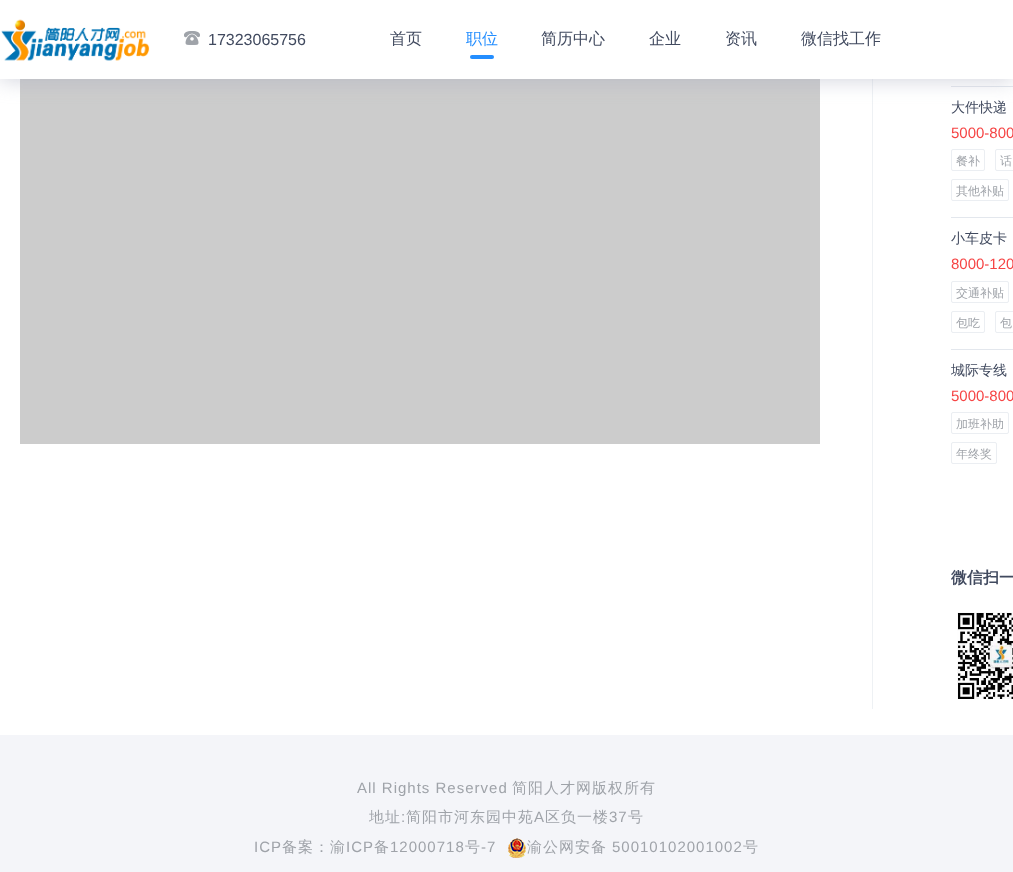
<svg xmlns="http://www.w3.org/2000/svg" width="1013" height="872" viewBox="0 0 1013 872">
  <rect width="100%" height="100%" fill="#fff"/>
  <path d="M20 79h800v365H20z" fill="#ccc"/>
  <path d="M872 79h1v630H872z" fill="#eef1f4"/>
  <path d="M951 86h62v1H951z" fill="#e3e7ed"/>
  <path d="M0 2h1013v79H0z" fill="#aaadbf80" filter="blur(10px)"/>
  <path d="M0 0h1013v79H0z" fill="#fff"/>
  <image x="1" y="19" width="149" height="42" href="img/1.png"/>
  <image x="184" y="31" width="16" height="14" href="img/2.png"/>
  <rect x="470" y="55" width="24" height="4" rx="2" fill="#248eff"/>
  <rect x="951.5" y="149.5" width="33" height="21" rx="1.5" fill="none" stroke="#ebeef2"/>
  <rect x="995.5" y="149.5" width="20" height="21" rx="1.5" fill="none" stroke="#ebeef2"/>
  <rect x="951.5" y="179.5" width="57" height="21" rx="1.5" fill="none" stroke="#ebeef2"/>
  <path d="M951 217h62v1H951z" fill="#e3e7ed"/>
  <rect x="951.5" y="281.5" width="57" height="21" rx="1.5" fill="none" stroke="#ebeef2"/>
  <rect x="951.5" y="311.5" width="33" height="21" rx="1.5" fill="none" stroke="#ebeef2"/>
  <rect x="995.5" y="311.5" width="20" height="21" rx="1.5" fill="none" stroke="#ebeef2"/>
  <path d="M951 349h62v1H951z" fill="#e3e7ed"/>
  <rect x="951.5" y="412.5" width="57" height="21" rx="1.5" fill="none" stroke="#ebeef2"/>
  <rect x="951.5" y="442.5" width="45" height="21" rx="1.5" fill="none" stroke="#ebeef2"/>
  <image x="957" y="612" width="56" height="87" href="img/3.png"/>
  <path d="M0 735h1013v137H0z" fill="#f4f5f9"/>
  <image x="508" y="838" width="18" height="20" href="img/4.png"/>
  <text x="208" y="45" font-family="Liberation Sans" font-size="16" fill="#414a5f">17323065756</text>
  <text x="390" y="44" font-family="WenQuanYi Zen Hei" font-size="16" font-weight="500" fill="#414a5f">首页</text>
  <text x="466" y="44" font-family="WenQuanYi Zen Hei" font-size="16" font-weight="500" fill="#248eff">职位</text>
  <g font-family="WenQuanYi Zen Hei" font-size="16" font-weight="500" fill="#414a5f">
    <text x="541" y="44">简历中心</text>
    <text x="649" y="44">企业</text>
    <text x="725" y="44">资讯</text>
    <text x="801" y="44">微信找工作</text>
  </g>
  <text x="951" y="112" font-family="WenQuanYi Zen Hei" font-size="14" font-weight="500" fill="#414a5f">大件快递</text>
  <text x="951" y="138" font-family="Liberation Sans" font-size="15" fill="#f64444">5000-800</text>
  <g font-family="WenQuanYi Zen Hei" font-size="12" font-weight="500" fill="#9fa3a9">
    <text x="956" y="165">餐补</text>
    <text x="1000" y="165">话</text>
    <text x="956" y="195">其他补贴</text>
  </g>
  <text x="951" y="243" font-family="WenQuanYi Zen Hei" font-size="14" font-weight="500" fill="#414a5f">小车皮卡</text>
  <text x="951" y="269" font-family="Liberation Sans" font-size="15" fill="#f64444">8000-120</text>
  <g font-family="WenQuanYi Zen Hei" font-size="12" font-weight="500" fill="#9fa3a9">
    <text x="956" y="297">交通补贴</text>
    <text x="956" y="327">包吃</text>
    <text x="1000" y="327">包</text>
  </g>
  <text x="951" y="375" font-family="WenQuanYi Zen Hei" font-size="14" font-weight="500" fill="#414a5f">城际专线</text>
  <text x="951" y="401" font-family="Liberation Sans" font-size="15" fill="#f64444">5000-800</text>
  <g font-family="WenQuanYi Zen Hei" font-size="12" font-weight="500" fill="#9fa3a9">
    <text x="956" y="428">加班补助</text>
    <text x="956" y="458">年终奖</text>
  </g>
  <text x="951" y="583" font-family="WenQuanYi Zen Hei" font-size="16" font-weight="bold" fill="#414a5f">微信扫一</text>
  <text x="357" y="793" font-family="Liberation Sans" font-size="15" letter-spacing="1" fill="#9fa3a9">All Rights Reserved</text>
  <g font-family="WenQuanYi Zen Hei" font-size="15" font-weight="500" letter-spacing="1" fill="#9fa3a9">
    <text x="512" y="793">简阳人才网版权所有</text>
    <text x="369" y="822">地址</text>
  </g>
  <text x="401" y="822" font-family="Liberation Sans" font-size="15" letter-spacing="1" fill="#9fa3a9">:</text>
  <text x="406" y="822" font-family="WenQuanYi Zen Hei" font-size="15" font-weight="500" letter-spacing="1" fill="#9fa3a9">简阳市河东园中苑</text>
  <text x="534" y="822" font-family="Liberation Sans" font-size="15" letter-spacing="1" fill="#9fa3a9">A</text>
  <text x="545" y="822" font-family="WenQuanYi Zen Hei" font-size="15" font-weight="500" letter-spacing="1" fill="#9fa3a9">区负一楼</text>
  <text x="609" y="822" font-family="Liberation Sans" font-size="15" letter-spacing="1" fill="#9fa3a9">37</text>
  <text x="628" y="822" font-family="WenQuanYi Zen Hei" font-size="15" font-weight="500" letter-spacing="1" fill="#9fa3a9">号</text>
  <text x="254" y="852" font-family="Liberation Sans" font-size="15" letter-spacing="1" fill="#9fa3a9">ICP</text>
  <text x="282" y="852" font-family="WenQuanYi Zen Hei" font-size="15" font-weight="500" letter-spacing="1" fill="#9fa3a9">备案：渝</text>
  <text x="346" y="852" font-family="Liberation Sans" font-size="15" letter-spacing="1" fill="#9fa3a9">ICP</text>
  <text x="374" y="852" font-family="WenQuanYi Zen Hei" font-size="15" font-weight="500" letter-spacing="1" fill="#9fa3a9">备</text>
  <text x="390" y="852" font-family="Liberation Sans" font-size="15" letter-spacing="1" fill="#9fa3a9">12000718</text>
  <text x="465" y="852" font-family="WenQuanYi Zen Hei" font-size="15" font-weight="500" letter-spacing="1" fill="#9fa3a9">号</text>
  <text x="481" y="852" font-family="Liberation Sans" font-size="15" letter-spacing="1" fill="#9fa3a9">-7</text>
  <text x="527" y="852" font-family="WenQuanYi Zen Hei" font-size="15" font-weight="500" letter-spacing="1" fill="#9fa3a9">渝公网安备</text>
  <text x="612" y="852" font-family="Liberation Sans" font-size="15" letter-spacing="1" fill="#9fa3a9">50010102001002</text>
  <text x="743" y="852" font-family="WenQuanYi Zen Hei" font-size="15" font-weight="500" letter-spacing="1" fill="#9fa3a9">号</text>
</svg>
